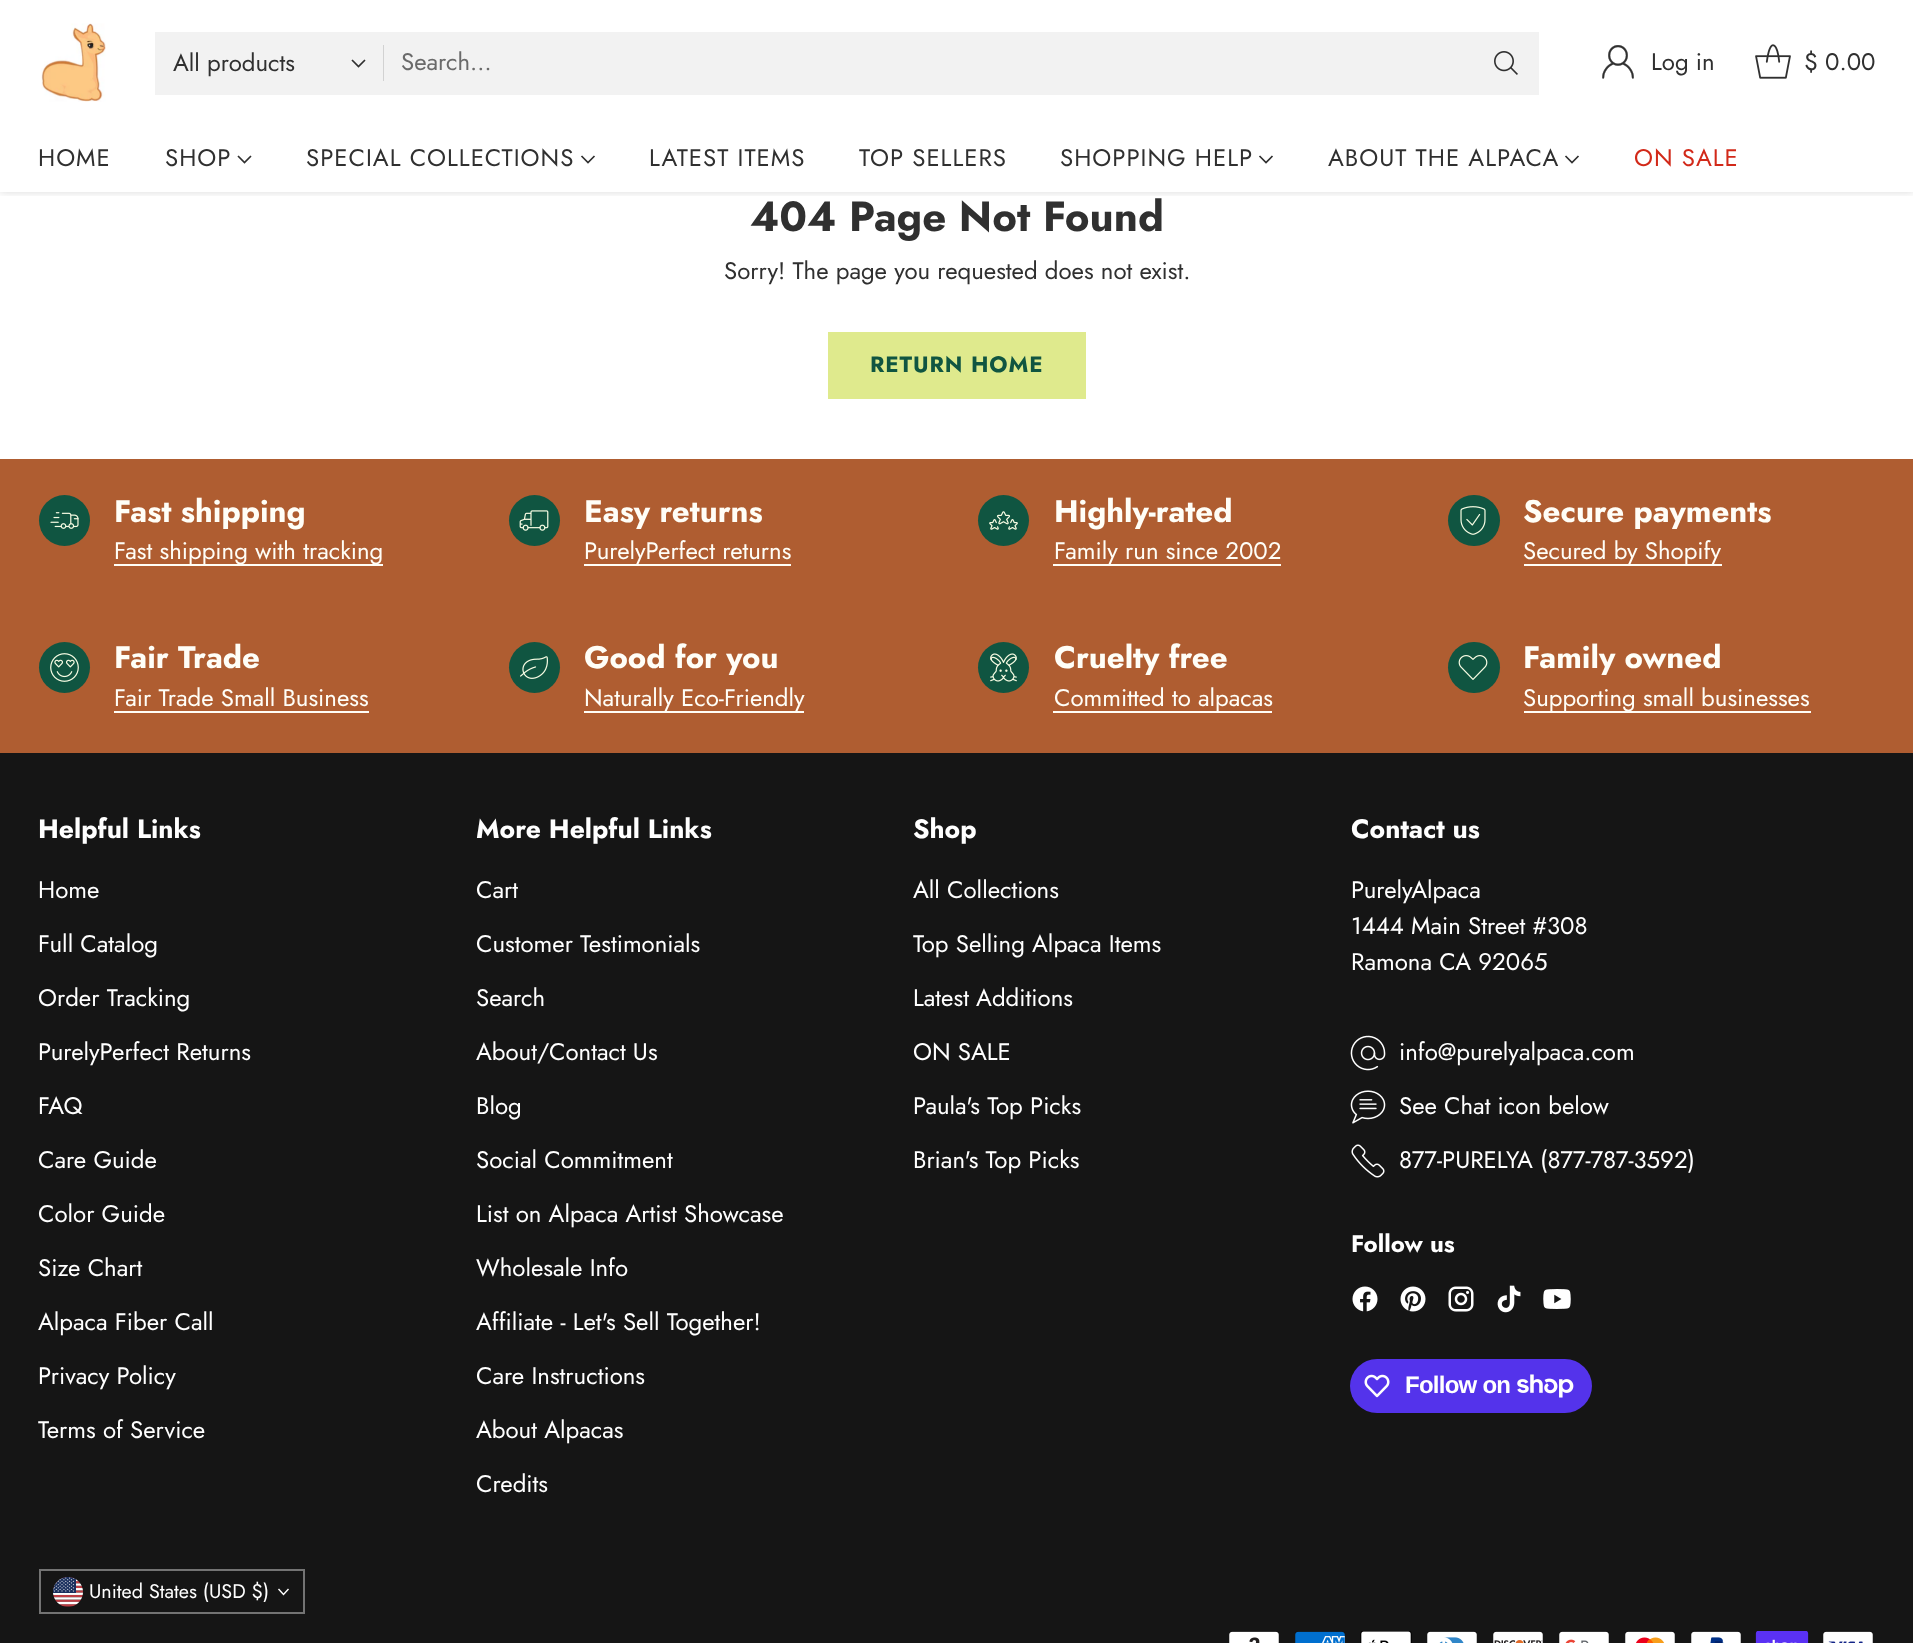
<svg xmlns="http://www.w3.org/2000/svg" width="1913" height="1643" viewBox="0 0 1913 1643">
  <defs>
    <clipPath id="clip1"><path d="M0 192h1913v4H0z"/></clipPath>
  </defs>
  <rect width="100%" height="100%" fill="#fff"/>
  <g clip-path="url(#clip1)">
    <path d="M0 126h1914v66H0z" fill="#00000026" filter="blur(4px)"/>
  </g>
  <path d="M0 120h1913v6H0z" fill="#fff"/>
  <image x="41" y="23" width="65" height="79" href="img/1.png"/>
  <path d="M156 33h1382v61H156z" fill="none" stroke="#f2f2f2" stroke-width="2"/>
  <path d="M157 34h1380v59H157z" fill="#f2f2f2"/>
  <path d="M352 60L358.5 66.5L365 60" fill="none" stroke="#303030" stroke-width="1.7"/>
  <path d="M383 45h1v36H383z" fill="#d2d2d2"/>
  <image x="1494" y="51" width="24" height="24" href="img/2.png"/>
  <image x="1602" y="45" width="32" height="34" href="img/3.png"/>
  <image x="1755" y="44" width="36" height="35" href="img/4.png"/>
  <path d="M238 156L244.5 162.5L251 156" fill="none" stroke="#303030" stroke-width="1.7"/>
  <path d="M581.5 156L588 162.5L594.5 156" fill="none" stroke="#303030" stroke-width="1.7"/>
  <path d="M1259.5 156L1266 162.5L1272.5 156" fill="none" stroke="#303030" stroke-width="1.7"/>
  <path d="M1565.5 156L1572 162.5L1578.5 156" fill="none" stroke="#303030" stroke-width="1.7"/>
  <path d="M828 332h258v67H828z" fill="#dfea8d"/>
  <path d="M0 459h1913v294H0z" fill="#af5d31"/>
  <circle cx="64.5" cy="520.5" r="25.5" fill="#105541"/>
  <image x="50" y="512" width="29" height="17" href="img/5.png"/>
  <path d="M114 564h269v2H114z" fill="#fffef7"/>
  <circle cx="534.5" cy="520.5" r="25.5" fill="#105541"/>
  <image x="519" y="510" width="30" height="21" href="img/6.png"/>
  <path d="M584 564h207v2H584z" fill="#fffef7"/>
  <circle cx="1003.5" cy="520.5" r="25.5" fill="#105541"/>
  <image x="989" y="511" width="29" height="19" href="img/7.png"/>
  <path d="M1053 564h228v2H1053z" fill="#fffef7"/>
  <rect x="1448" y="495" width="52" height="51" rx="25.5" fill="#105541"/>
  <image x="1460" y="506" width="26" height="29" href="img/8.png"/>
  <path d="M1524 564h198v2H1524z" fill="#fffef7"/>
  <circle cx="64.5" cy="667.5" r="25.5" fill="#105541"/>
  <image x="50" y="653" width="29" height="29" href="img/9.png"/>
  <path d="M114 711h255v2H114z" fill="#fffef7"/>
  <circle cx="534.5" cy="667.5" r="25.5" fill="#105541"/>
  <image x="520" y="656" width="28" height="23" href="img/10.png"/>
  <path d="M584 711h220v2H584z" fill="#fffef7"/>
  <circle cx="1003.5" cy="667.5" r="25.5" fill="#105541"/>
  <image x="990" y="653" width="27" height="29" href="img/11.png"/>
  <path d="M1053 711h219v2H1053z" fill="#fffef7"/>
  <rect x="1448" y="642" width="52" height="51" rx="25.5" fill="#105541"/>
  <image x="1458" y="655" width="30" height="25" href="img/12.png"/>
  <path d="M1524 711h287v2H1524z" fill="#fffef7"/>
  <path d="M0 753h1913v890H0z" fill="#151515"/>
  <image x="1350" y="1035" width="36" height="36" href="img/13.png"/>
  <image x="1350" y="1090" width="36" height="34" href="img/14.png"/>
  <image x="1351" y="1144" width="34" height="34" href="img/15.png"/>
  <image x="1352" y="1286" width="26" height="26" href="img/16.png"/>
  <image x="1400" y="1286" width="26" height="26" href="img/17.png"/>
  <image x="1448" y="1286" width="26" height="26" href="img/18.png"/>
  <image x="1497" y="1285" width="24" height="28" href="img/19.png"/>
  <image x="1543" y="1289" width="28" height="20" href="img/20.png"/>
  <rect x="1350" y="1359" width="242" height="54" rx="27" fill="#5433eb"/>
  <image x="1364" y="1374" width="26" height="24" href="img/21.png"/>
  <image x="1517" y="1374" width="57" height="24" href="img/22.png"/>
  <path d="M40 1570h264v43H40z" fill="none" stroke="#737373" stroke-width="2"/>
  <image x="53" y="1577" width="30" height="30" href="img/23.png"/>
  <path d="M278.5 1589L283.5 1594.5L288.5 1589" fill="none" stroke="#fff" stroke-width="1.4"/>
  <image x="1229" y="1631" width="50" height="12" href="img/24.png"/>
  <image x="1295" y="1631" width="50" height="12" href="img/25.png"/>
  <image x="1360" y="1631" width="52" height="12" href="img/26.png"/>
  <image x="1427" y="1631" width="50" height="12" href="img/27.png"/>
  <image x="1493" y="1631" width="50" height="12" href="img/28.png"/>
  <image x="1559" y="1631" width="50" height="12" href="img/29.png"/>
  <image x="1625" y="1631" width="50" height="12" href="img/30.png"/>
  <image x="1691" y="1631" width="50" height="12" href="img/31.png"/>
  <image x="1755" y="1631" width="54" height="12" href="img/32.png"/>
  <image x="1823" y="1631" width="50" height="12" href="img/33.png"/>
  <text x="173" y="71" font-family="Jost" font-size="24" fill="#303030">All products</text>
  <text x="401" y="70" font-family="Jost" font-size="24" fill="#6a6a6a">Search…</text>
  <g font-family="Jost" font-size="24" fill="#303030">
    <text x="1651" y="70">Log in</text>
    <text x="1804" y="70">$ 0.00</text>
  </g>
  <g font-family="Jost" font-size="24" letter-spacing="1" fill="#303030">
    <text x="38" y="166">HOME</text>
    <text x="165" y="166">SHOP</text>
    <text x="306" y="166">SPECIAL COLLECTIONS</text>
    <text x="649" y="166">LATEST ITEMS</text>
    <text x="859" y="166">TOP SELLERS</text>
    <text x="1060" y="166">SHOPPING HELP</text>
    <text x="1328" y="166">ABOUT THE ALPACA</text>
  </g>
  <text x="1634" y="166" font-family="Jost" font-size="24" letter-spacing="1" fill="#d22919">ON SALE</text>
  <text x="750" y="231" font-family="Jost" font-size="42" font-weight="bold" fill="#303030">404 Page Not Found</text>
  <text x="724" y="279" font-family="Jost" font-size="24" fill="#303030">Sorry! The page you requested does not exist.</text>
  <text x="870" y="372" font-family="Jost" font-size="22.25" font-weight="bold" letter-spacing="0.9" fill="#105541">RETURN HOME</text>
  <text x="114" y="522" font-family="Jost" font-size="31.25" font-weight="bold" fill="#fffef7">Fast shipping</text>
  <text x="114" y="559" font-family="Jost" font-size="24" fill="#fffef7">Fast shipping with tracking</text>
  <text x="584" y="522" font-family="Jost" font-size="31.25" font-weight="bold" fill="#fffef7">Easy returns</text>
  <text x="584" y="559" font-family="Jost" font-size="24" fill="#fffef7">PurelyPerfect returns</text>
  <text x="1054" y="522" font-family="Jost" font-size="31.25" font-weight="bold" fill="#fffef7">Highly-rated</text>
  <text x="1054" y="559" font-family="Jost" font-size="24" fill="#fffef7">Family run since 2002</text>
  <text x="1523" y="522" font-family="Jost" font-size="31.25" font-weight="bold" fill="#fffef7">Secure payments</text>
  <text x="1523" y="559" font-family="Jost" font-size="24" fill="#fffef7">Secured by Shopify</text>
  <text x="114" y="668" font-family="Jost" font-size="31.25" font-weight="bold" fill="#fffef7">Fair Trade</text>
  <text x="114" y="706" font-family="Jost" font-size="24" fill="#fffef7">Fair Trade Small Business</text>
  <text x="584" y="668" font-family="Jost" font-size="31.25" font-weight="bold" fill="#fffef7">Good for you</text>
  <text x="584" y="706" font-family="Jost" font-size="24" fill="#fffef7">Naturally Eco-Friendly</text>
  <text x="1054" y="668" font-family="Jost" font-size="31.25" font-weight="bold" fill="#fffef7">Cruelty free</text>
  <text x="1054" y="706" font-family="Jost" font-size="24" fill="#fffef7">Committed to alpacas</text>
  <text x="1523" y="668" font-family="Jost" font-size="31.25" font-weight="bold" fill="#fffef7">Family owned</text>
  <text x="1523" y="706" font-family="Jost" font-size="24" fill="#fffef7">Supporting small businesses</text>
  <text x="38" y="838" font-family="Jost" font-size="26.5" font-weight="bold" fill="#fff">Helpful Links</text>
  <g font-family="Jost" font-size="24" fill="#fff">
    <text x="38" y="898">Home</text>
    <text x="38" y="952">Full Catalog</text>
    <text x="38" y="1006">Order Tracking</text>
    <text x="38" y="1060">PurelyPerfect Returns</text>
    <text x="38" y="1114">FAQ</text>
    <text x="38" y="1168">Care Guide</text>
    <text x="38" y="1222">Color Guide</text>
    <text x="38" y="1276">Size Chart</text>
    <text x="38" y="1330">Alpaca Fiber Call</text>
    <text x="38" y="1384">Privacy Policy</text>
    <text x="38" y="1438">Terms of Service</text>
  </g>
  <text x="476" y="838" font-family="Jost" font-size="26.5" font-weight="bold" fill="#fff">More Helpful Links</text>
  <g font-family="Jost" font-size="24" fill="#fff">
    <text x="476" y="898">Cart</text>
    <text x="476" y="952">Customer Testimonials</text>
    <text x="476" y="1006">Search</text>
    <text x="476" y="1060">About/Contact Us</text>
    <text x="476" y="1114">Blog</text>
    <text x="476" y="1168">Social Commitment</text>
    <text x="476" y="1222">List on Alpaca Artist Showcase</text>
    <text x="476" y="1276">Wholesale Info</text>
    <text x="476" y="1330">Affiliate - Let's Sell Together!</text>
    <text x="476" y="1384">Care Instructions</text>
    <text x="476" y="1438">About Alpacas</text>
    <text x="476" y="1492">Credits</text>
  </g>
  <text x="913" y="838" font-family="Jost" font-size="26.5" font-weight="bold" fill="#fff">Shop</text>
  <g font-family="Jost" font-size="24" fill="#fff">
    <text x="913" y="898">All Collections</text>
    <text x="913" y="952">Top Selling Alpaca Items</text>
    <text x="913" y="1006">Latest Additions</text>
    <text x="913" y="1060">ON SALE</text>
    <text x="913" y="1114">Paula's Top Picks</text>
    <text x="913" y="1168">Brian's Top Picks</text>
  </g>
  <text x="1351" y="838" font-family="Jost" font-size="26.5" font-weight="bold" fill="#fff">Contact us</text>
  <g font-family="Jost" font-size="24" fill="#fff">
    <text x="1351" y="898">PurelyAlpaca</text>
    <text x="1351" y="934">1444 Main Street #308</text>
    <text x="1351" y="970">Ramona CA 92065</text>
    <text x="1399" y="1060">info@purelyalpaca.com</text>
    <text x="1399" y="1114">See Chat icon below</text>
    <text x="1399" y="1168">877-PURELYA (877-787-3592)</text>
  </g>
  <text x="1351" y="1252" font-family="Jost" font-size="24" font-weight="bold" fill="#fff">Follow us</text>
  <text x="1405" y="1393" font-family="Liberation Sans" font-size="24" font-weight="bold" letter-spacing="-0.75" fill="#fff">Follow on</text>
  <text x="89" y="1598" font-family="Jost" font-size="19.75" fill="#fff">United States (USD $)</text>
</svg>
